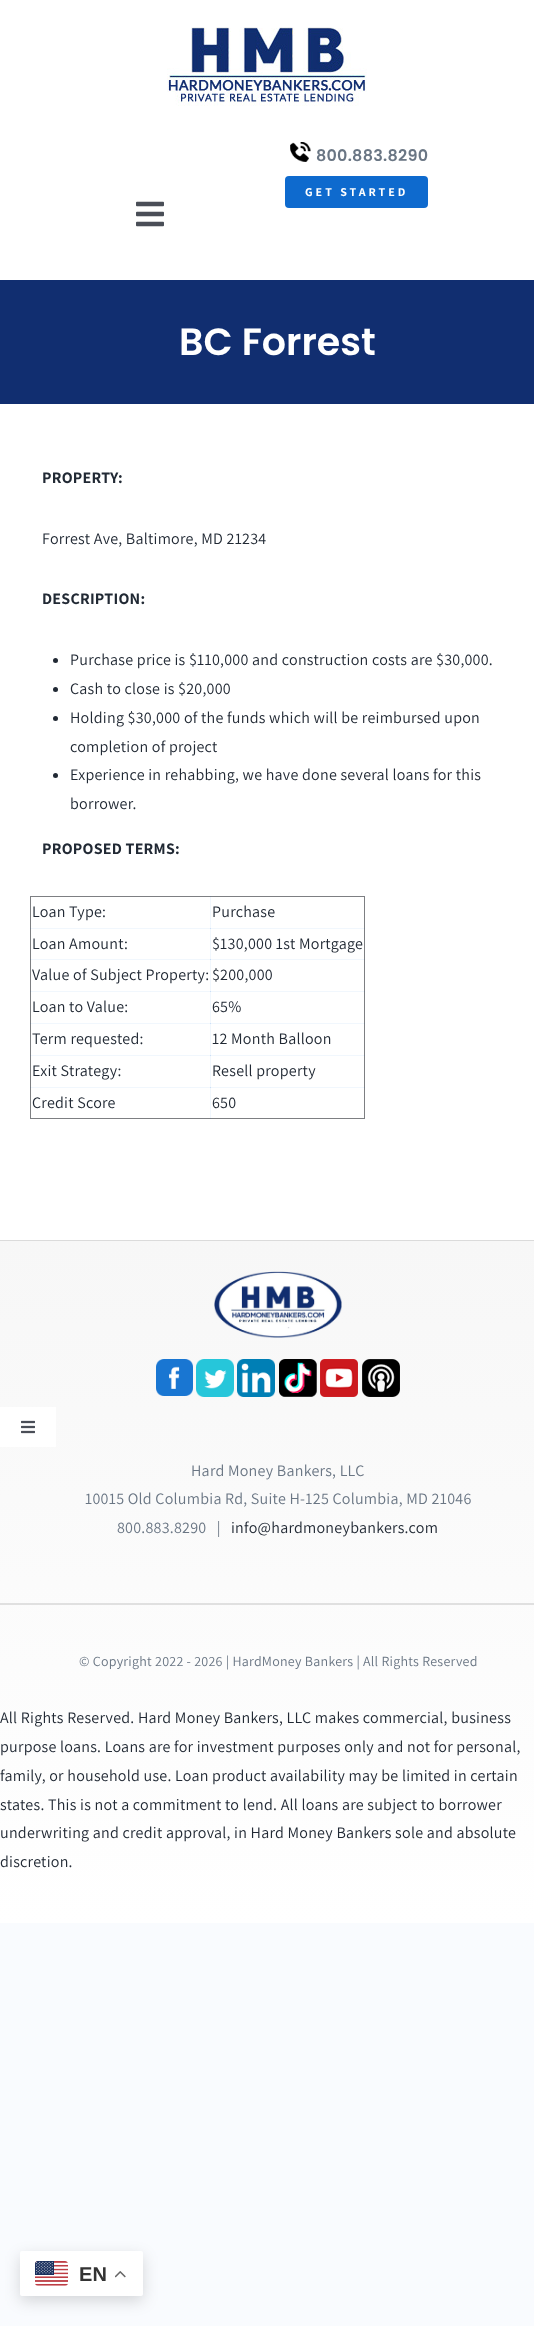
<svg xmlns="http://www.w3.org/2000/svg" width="534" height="2326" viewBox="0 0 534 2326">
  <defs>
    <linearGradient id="g1" gradientUnits="userSpaceOnUse" x1="267" y1="1241" x2="267" y2="1923"><stop offset="0" stop-color="#f7f7f7"/><stop offset="1" stop-color="#fff"/></linearGradient>
  </defs>
  <rect width="100%" height="100%" fill="#f9fbfe"/>
  <path d="M0 0h534v1240H0z" fill="#fff"/>
  <path d="M210 896h1v33H210z" fill="#f1f7fd"/>
  <path d="M30 928h181v1H30z" fill="#f1f7fd"/>
  <path d="M210 928h1v32H210z" fill="#f1f7fd"/>
  <path d="M210 928h155v1H210z" fill="#f1f7fd"/>
  <path d="M210 928h1v1H210z" fill="#cbdff7"/>
  <path d="M30 959h181v1H30z" fill="#f1f7fd"/>
  <path d="M210 959h1v33H210z" fill="#f1f7fd"/>
  <path d="M210 959h155v1H210z" fill="#f1f7fd"/>
  <path d="M210 959h1v1H210z" fill="#cbdff7"/>
  <path d="M30 991h181v1H30z" fill="#f1f7fd"/>
  <path d="M210 991h1v33H210z" fill="#f1f7fd"/>
  <path d="M210 991h155v1H210z" fill="#f1f7fd"/>
  <path d="M210 991h1v1H210z" fill="#cbdff7"/>
  <path d="M30 1023h181v1H30z" fill="#f1f7fd"/>
  <path d="M210 1023h1v33H210z" fill="#f1f7fd"/>
  <path d="M210 1023h155v1H210z" fill="#f1f7fd"/>
  <path d="M210 1023h1v1H210z" fill="#cbdff7"/>
  <path d="M30 1055h181v1H30z" fill="#f1f7fd"/>
  <path d="M210 1055h1v33H210z" fill="#f1f7fd"/>
  <path d="M210 1055h155v1H210z" fill="#f1f7fd"/>
  <path d="M210 1055h1v1H210z" fill="#cbdff7"/>
  <path d="M30 1087h181v1H30z" fill="#f1f7fd"/>
  <path d="M210 1087h1v32H210z" fill="#f1f7fd"/>
  <path d="M210 1087h155v1H210z" fill="#f1f7fd"/>
  <path d="M210 1087h1v1H210z" fill="#cbdff7"/>
  <image x="167" y="27" width="200" height="79" href="img/1.png"/>
  <image x="290" y="142" width="21" height="20" href="img/2.png"/>
  <rect x="285" y="176" width="143" height="32" rx="4" fill="#0e6ace"/>
  <image x="136" y="201" width="28" height="26" href="img/3.png"/>
  <path d="M0 280h534v124H0z" fill="#112e70"/>
  <circle cx="55.5" cy="660.5" r="2.5" fill="#212934"/>
  <circle cx="55.5" cy="689.5" r="2.5" fill="#212934"/>
  <circle cx="55.5" cy="718.5" r="2.5" fill="#212934"/>
  <circle cx="55.5" cy="775.5" r="2.5" fill="#212934"/>
  <path d="M30 896h181v1H30z" fill="#7d7f82"/>
  <path d="M364 896h1v223H364z" fill="#7d7f82"/>
  <path d="M364 928h1v1H364z" fill="#747c88"/>
  <path d="M364 959h1v1H364z" fill="#747c88"/>
  <path d="M364 991h1v1H364z" fill="#747c88"/>
  <path d="M364 1023h1v1H364z" fill="#747c88"/>
  <path d="M364 1055h1v1H364z" fill="#747c88"/>
  <path d="M364 1087h1v1H364z" fill="#747c88"/>
  <path d="M30 1118h335v1H30z" fill="#7d7f82"/>
  <path d="M210 1118h1v1H210z" fill="#747c88"/>
  <path d="M364 1118h1v1H364z" fill="#7a7e84"/>
  <path d="M30 896h1v223H30z" fill="#7d7f82"/>
  <path d="M30 896h1v1H30z" fill="#7a7e84"/>
  <path d="M30 928h1v1H30z" fill="#747c88"/>
  <path d="M30 959h1v1H30z" fill="#747c88"/>
  <path d="M30 991h1v1H30z" fill="#747c88"/>
  <path d="M30 1023h1v1H30z" fill="#747c88"/>
  <path d="M30 1055h1v1H30z" fill="#747c88"/>
  <path d="M30 1118h1v1H30z" fill="#7a7e84"/>
  <path d="M30 1087h1v1H30z" fill="#747c88"/>
  <path d="M210 896h155v1H210z" fill="#7d7f82"/>
  <path d="M210 896h1v1H210z" fill="#747c88"/>
  <path d="M364 896h1v1H364z" fill="#7a7e84"/>
  <path d="M0 1241h534v682H0z" fill="url(#g1)"/>
  <path d="M0 1240h534v1H0z" fill="#dbdbdb"/>
  <image x="214" y="1271" width="128" height="67" href="img/4.png"/>
  <image x="156" y="1359" width="37" height="37" href="img/5.png"/>
  <image x="196" y="1359" width="38" height="38" href="img/6.png"/>
  <image x="237" y="1359" width="38" height="38" href="img/7.png"/>
  <image x="279" y="1359" width="38" height="38" href="img/8.png"/>
  <image x="320" y="1359" width="38" height="38" href="img/9.png"/>
  <image x="362" y="1359" width="38" height="38" href="img/10.png"/>
  <path d="M0 1407h56v40H0z" fill="#fff"/>
  <image x="21" y="1420" width="14" height="14" href="img/11.png"/>
  <path d="M0 1603h534v2H0z" fill="#e0e0e0"/>
  <rect x="20" y="2256" width="123" height="45" rx="2" fill="#00000026" filter="blur(7.5px)"/>
  <rect x="20" y="2251" width="123" height="45" rx="2" fill="#fff"/>
  <image x="35" y="2261" width="33" height="25" href="img/12.png"/>
  <image x="115" y="2271" width="11" height="7" href="img/13.png"/>
  <text x="316" y="161" font-family="Poppins" font-size="16" font-weight="600" letter-spacing="0.25" fill="#6a7684">800.883.8290</text>
  <text x="305" y="196" font-family="Assistant" font-size="12" font-weight="bold" letter-spacing="3" fill="#fff">GET STARTED</text>
  <text x="179" y="355" font-family="Poppins" font-size="38" font-weight="600" fill="#fff">BC Forrest</text>
  <text x="42" y="483" font-family="Assistant" font-size="16" font-weight="bold" letter-spacing="0.25" fill="#212934">PROPERTY:</text>
  <text x="42" y="544" font-family="Assistant" font-size="16" letter-spacing="0.25" fill="#212934">Forrest Ave, Baltimore, MD 21234</text>
  <text x="42" y="604" font-family="Assistant" font-size="16" font-weight="bold" letter-spacing="0.25" fill="#212934">DESCRIPTION:</text>
  <g font-family="Assistant" font-size="16" letter-spacing="0.25" fill="#212934">
    <text x="70" y="665">Purchase price is $110,000 and construction costs are $30,000.</text>
    <text x="70" y="694">Cash to close is $20,000</text>
    <text x="70" y="723">Holding $30,000 of the funds which will be reimbursed upon</text>
    <text x="70" y="752">completion of project</text>
    <text x="70" y="780">Experience in rehabbing, we have done several loans for this</text>
    <text x="70" y="809">borrower.</text>
  </g>
  <text x="42" y="854" font-family="Assistant" font-size="16" font-weight="bold" letter-spacing="0.25" fill="#212934">PROPOSED TERMS:</text>
  <g font-family="Assistant" font-size="16" letter-spacing="0.25" fill="#212934">
    <text x="32" y="917">Loan Type:</text>
    <text x="212" y="917">Purchase</text>
    <text x="32" y="949">Loan Amount:</text>
    <text x="212" y="949">$130,000 1st Mortgage</text>
    <text x="32" y="980">Value of Subject Property:</text>
    <text x="212" y="980">$200,000</text>
    <text x="32" y="1012">Loan to Value:</text>
    <text x="212" y="1012">65%</text>
    <text x="32" y="1044">Term requested:</text>
    <text x="212" y="1044">12 Month Balloon</text>
    <text x="32" y="1076">Exit Strategy:</text>
    <text x="212" y="1076">Resell property</text>
    <text x="32" y="1108">Credit Score</text>
    <text x="212" y="1108">650</text>
  </g>
  <g font-family="Assistant" font-size="16" letter-spacing="0.25" fill="#6a7684">
    <text x="191" y="1476">Hard Money Bankers, LLC</text>
    <text x="85" y="1504">10015 Old Columbia Rd, Suite H-125 Columbia, MD 21046</text>
    <text x="117" y="1533" xml:space="preserve">800.883.8290   |</text>
  </g>
  <text x="231" y="1533" font-family="Assistant" font-size="16" letter-spacing="0.25" fill="#212934">info@hardmoneybankers.com</text>
  <text x="79" y="1666" font-family="Assistant" font-size="14" letter-spacing="0.25" fill="#6a7684">© Copyright 2022 - 2026 | HardMoney Bankers | All Rights Reserved</text>
  <g font-family="Assistant" font-size="16" letter-spacing="0.25" fill="#212934">
    <text x="0" y="1723">All Rights Reserved. Hard Money Bankers, LLC makes commercial, business</text>
    <text x="0" y="1752">purpose loans. Loans are for investment purposes only and not for personal,</text>
    <text x="0" y="1781">family, or household use. Loan product availability may be limited in certain</text>
    <text x="0" y="1810">states. This is not a commitment to lend. All loans are subject to borrower</text>
    <text x="0" y="1838">underwriting and credit approval, in Hard Money Bankers sole and absolute</text>
    <text x="0" y="1867">discretion.</text>
  </g>
  <text x="79" y="2281" font-family="Liberation Sans" font-size="20" font-weight="bold" letter-spacing="0.25" fill="#333">EN</text>
</svg>
